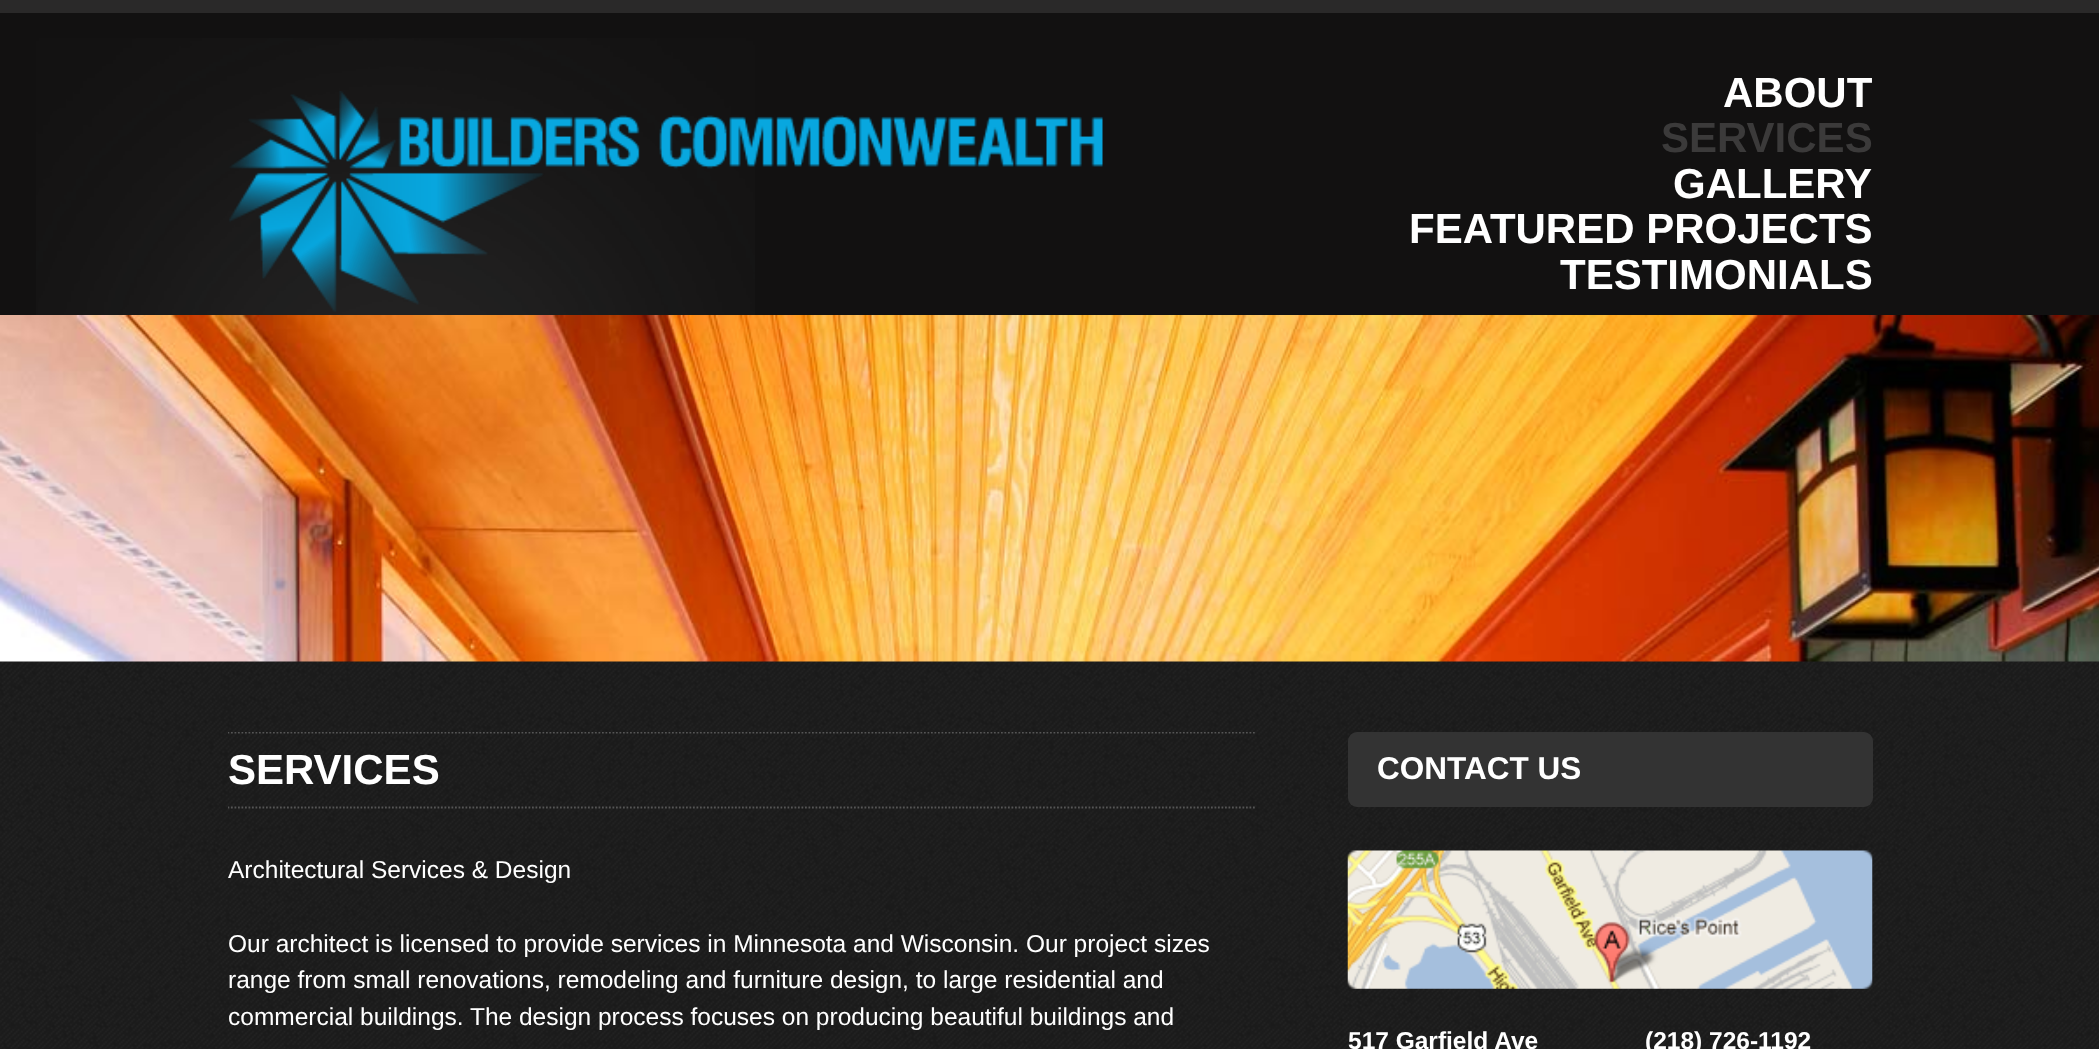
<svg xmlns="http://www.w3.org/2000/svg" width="2099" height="1049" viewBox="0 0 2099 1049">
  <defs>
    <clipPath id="clip1"><path d="M228 732h1027v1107H228z"/></clipPath>
  </defs>
  <rect width="100%" height="100%" fill="#fff"/>
  <image x="0" y="661" width="2099" height="388" href="img/1.png"/>
  <path d="M0 13h2099v302H0z" fill="#121111"/>
  <image x="36" y="38" width="719" height="277" href="img/2.png"/>
  <path d="M0 0h2099v13H0z" fill="#2a2929"/>
  <image x="229" y="91" width="874" height="221" href="img/3.png"/>
  <image x="0" y="315" width="2099" height="347" href="img/4.png"/>
  <g clip-path="url(#clip1)">
    <path d="M227.5 732.5H1255" fill="none" stroke="#555" stroke-width="1.8" stroke-dasharray="1.75 1.75"/>
    <path d="M227.5 807.5H1255" fill="none" stroke="#555" stroke-width="1.8" stroke-dasharray="1.75 1.75"/>
  </g>
  <rect x="1348" y="732" width="525" height="75" rx="9" fill="#333"/>
  <image x="1347" y="850" width="526" height="139" href="img/5.png"/>
  <text x="1723" y="107" font-family="Liberation Sans" font-size="42" font-weight="bold" fill="#fff">ABOUT</text>
  <text x="1661" y="152" font-family="Liberation Sans" font-size="42" font-weight="bold" fill="#3b3a3a">SERVICES</text>
  <g font-family="Liberation Sans" font-size="42" font-weight="bold" fill="#fff">
    <text x="1673" y="198">GALLERY</text>
    <text x="1409" y="243">FEATURED PROJECTS</text>
    <text x="1560" y="289">TESTIMONIALS</text>
    <text x="228" y="784">SERVICES</text>
  </g>
  <g font-family="Liberation Sans" font-size="24.5" fill="#fff">
    <text x="228" y="878">Architectural Services &amp; Design</text>
    <text x="228" y="952">Our architect is licensed to provide services in Minnesota and Wisconsin. Our project sizes</text>
    <text x="228" y="988">range from small renovations, remodeling and furniture design, to large residential and</text>
    <text x="228" y="1025">commercial buildings. The design process focuses on producing beautiful buildings and</text>
  </g>
  <text x="1377" y="779" font-family="Liberation Sans" font-size="31.5" font-weight="bold" fill="#fff">CONTACT US</text>
  <g font-family="Liberation Sans" font-size="24.5" font-weight="bold" fill="#fff">
    <text x="1348" y="1049">517 Garfield Ave</text>
    <text x="1645" y="1049">(218) 726-1192</text>
  </g>
</svg>
